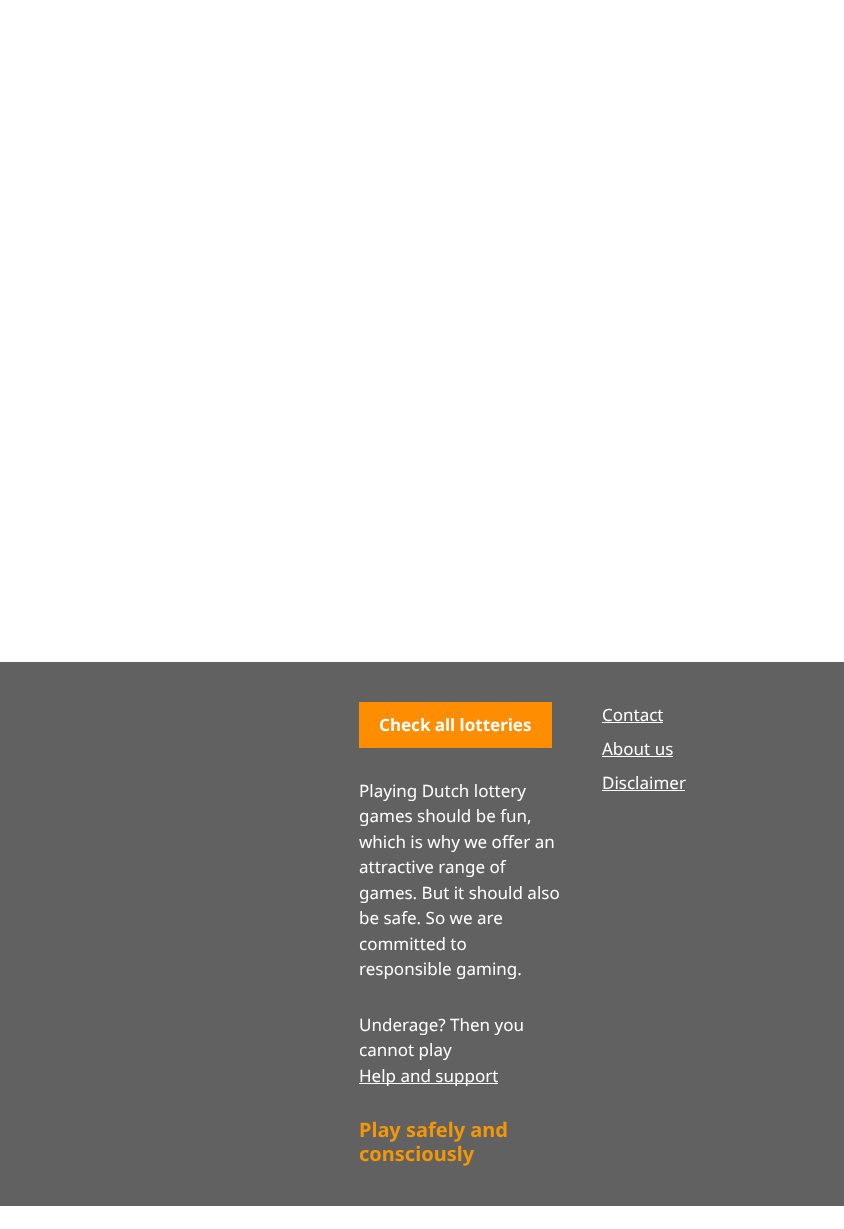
<svg xmlns="http://www.w3.org/2000/svg" width="844" height="1229" viewBox="0 0 844 1229">
  <rect width="100%" height="100%" fill="#fff"/>
  <path d="M0 662h844v544H0z" fill="#616161"/>
  <path d="M359 702h193v46H359z" fill="#ff8d01"/>
  <path d="M359 1083h139v1H359z" fill="#fff"/>
  <path d="M602 722h61v1H602z" fill="#fff"/>
  <path d="M602 756h71v1H602z" fill="#fff"/>
  <path d="M602 790h83v1H602z" fill="#fff"/>
  <text x="379" y="731" font-family="Noto Sans" font-size="17" font-weight="bold" fill="#fff">Check all lotteries</text>
  <g font-family="Noto Sans" font-size="17" fill="#fff">
    <text x="359" y="797">Playing Dutch lottery</text>
    <text x="359" y="822">games should be fun,</text>
    <text x="359" y="848">which is why we offer an</text>
    <text x="359" y="873">attractive range of</text>
    <text x="359" y="899">games. But it should also</text>
    <text x="359" y="924">be safe. So we are</text>
    <text x="359" y="950">committed to</text>
    <text x="359" y="975">responsible gaming.</text>
    <text x="359" y="1031">Underage? Then you</text>
    <text x="359" y="1056">cannot play</text>
    <text x="359" y="1082">Help and support</text>
  </g>
  <g font-family="Noto Sans" font-size="20" font-weight="bold" fill="#f29707">
    <text x="359" y="1137">Play safely and</text>
    <text x="359" y="1161">consciously</text>
  </g>
  <g font-family="Noto Sans" font-size="17" fill="#fff">
    <text x="602" y="721">Contact</text>
    <text x="602" y="755">About us</text>
    <text x="602" y="789">Disclaimer</text>
  </g>
</svg>
